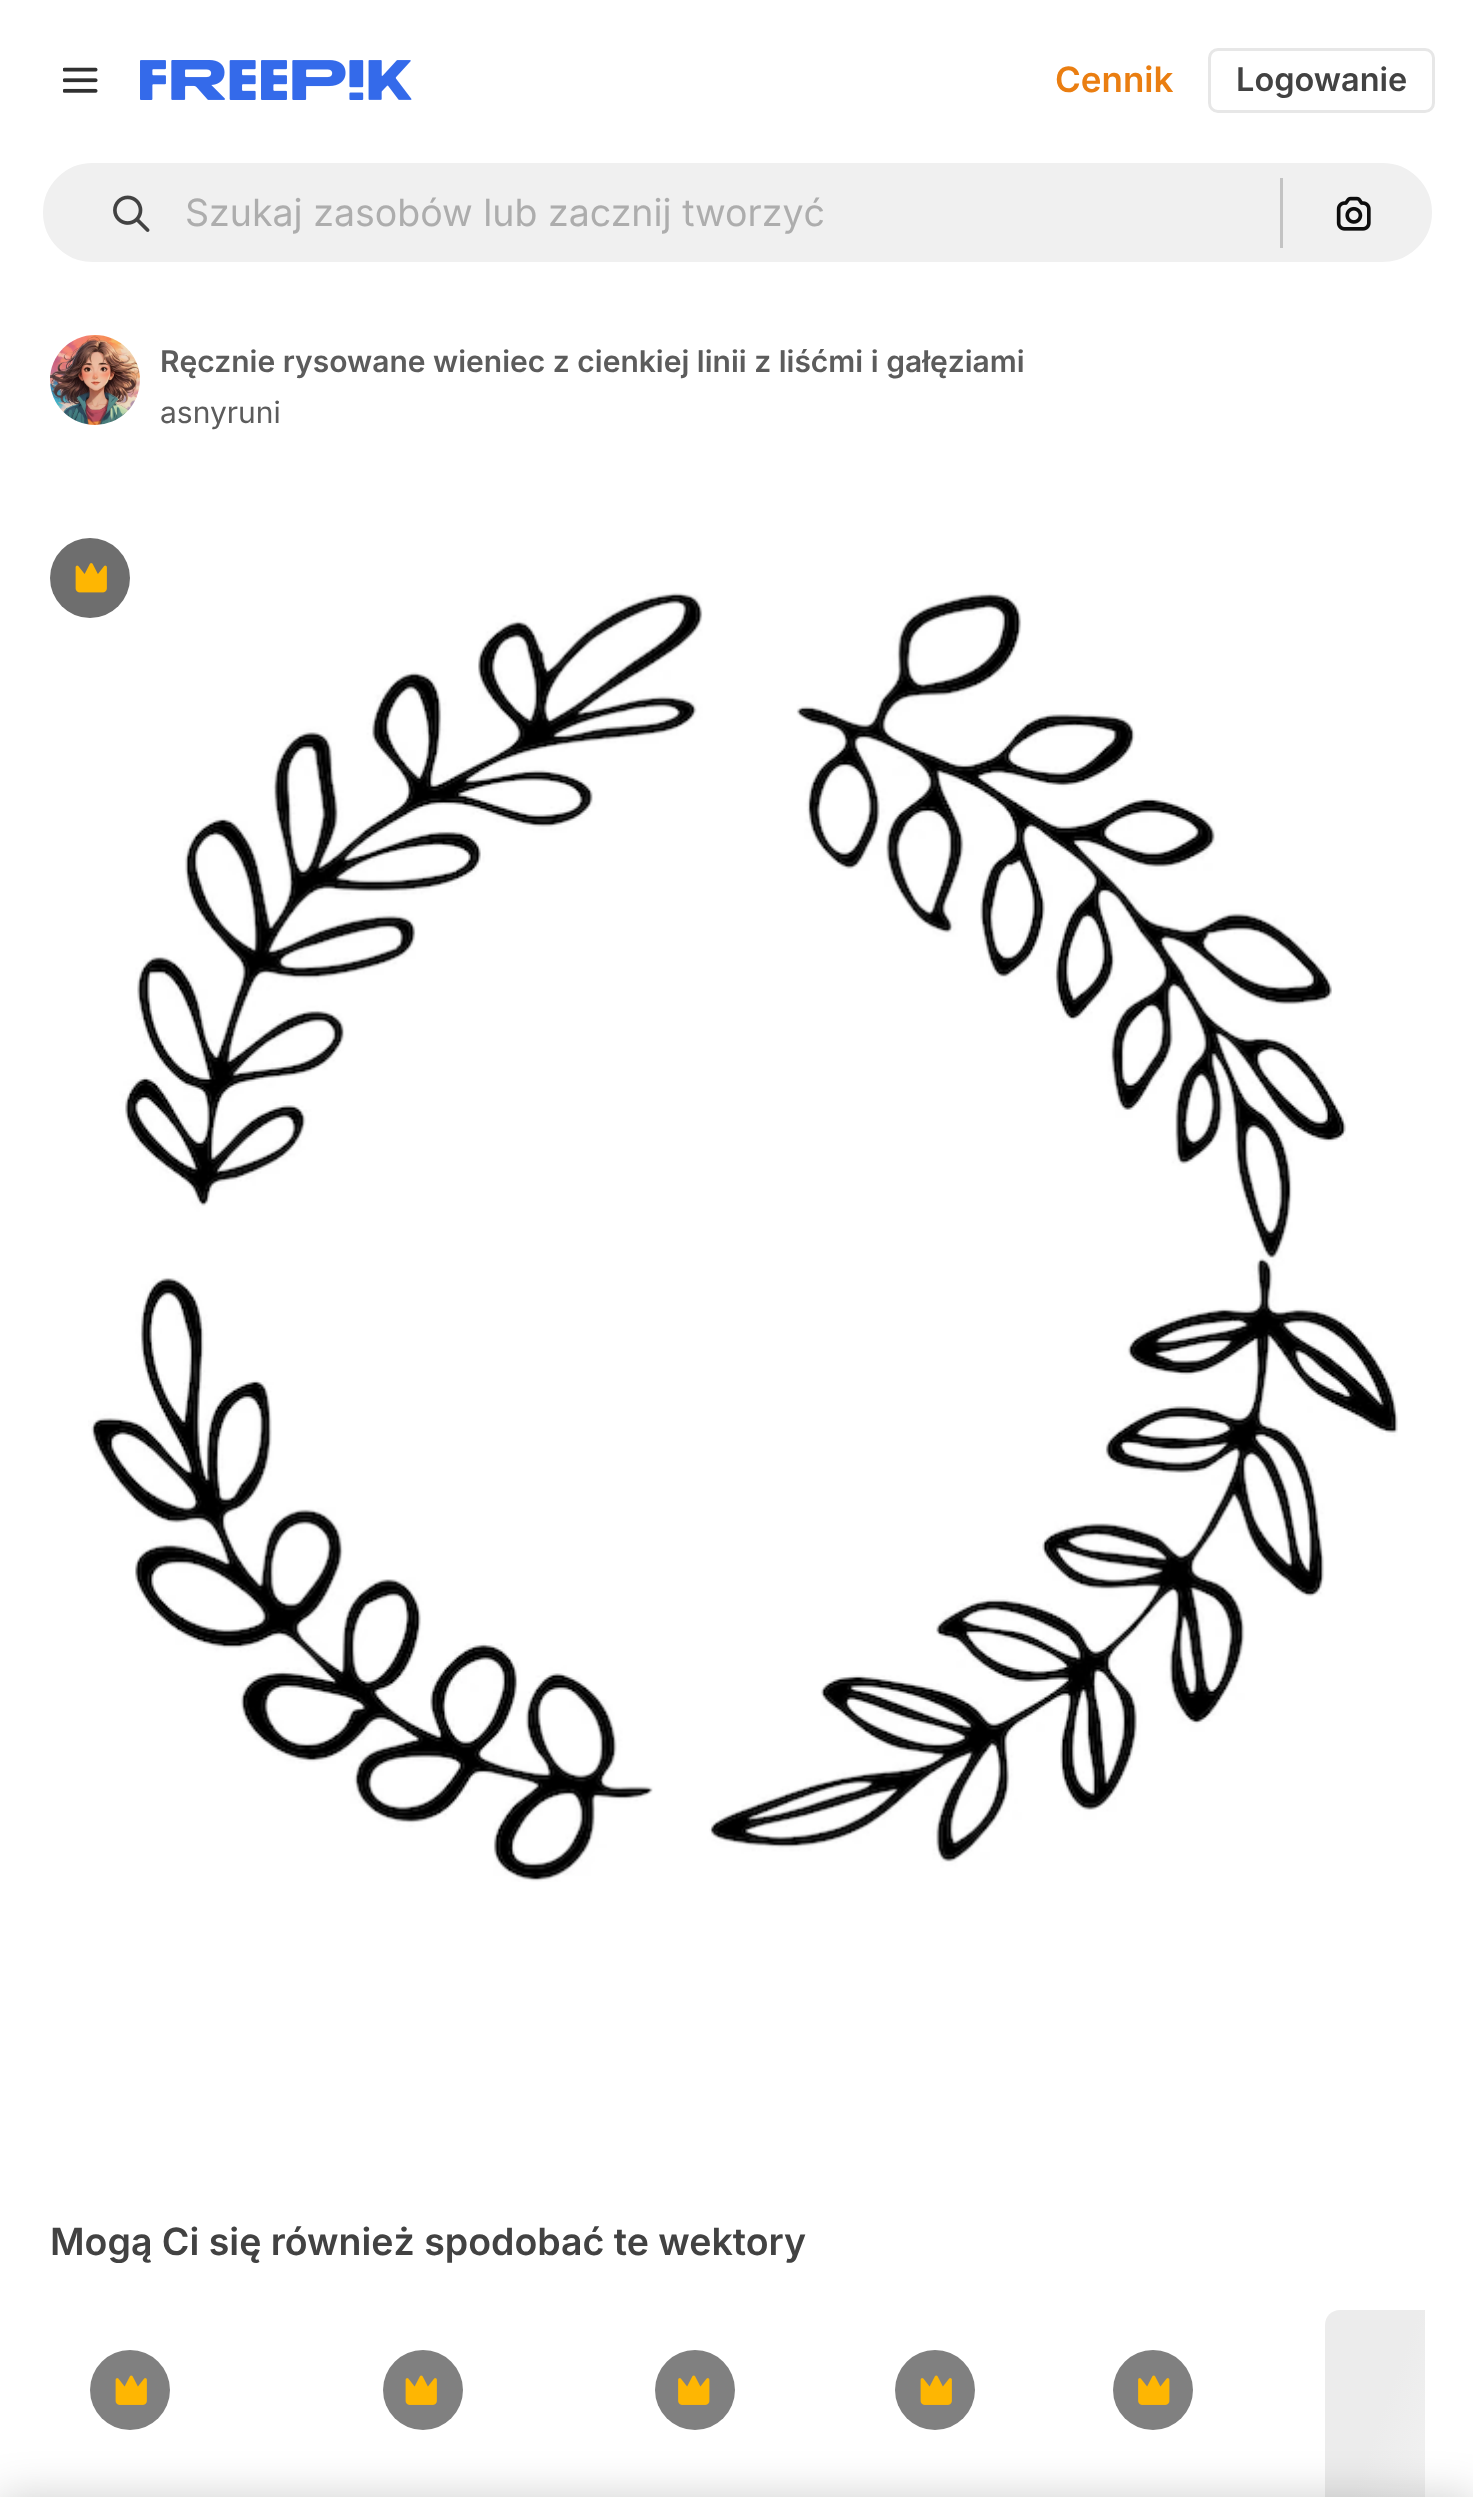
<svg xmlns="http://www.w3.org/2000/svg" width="1473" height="2497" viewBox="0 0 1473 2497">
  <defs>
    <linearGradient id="g1" gradientUnits="userSpaceOnUse" x1="1303" y1="2370" x2="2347" y2="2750"><stop offset="0.08" stop-color="#ececec"/><stop offset="0.18" stop-color="#f5f5f5"/><stop offset="0.33" stop-color="#ececec"/></linearGradient>
  </defs>
  <rect width="100%" height="100%" fill="#fff"/>
  <image x="63" y="67" width="35" height="26" href="img/1.png"/>
  <image x="140" y="60" width="272" height="40" href="img/2.png"/>
  <rect x="1209.5" y="49.5" width="224" height="62" rx="8.5" fill="none" stroke="#e7e7e7" stroke-width="3"/>
  <rect x="41.5" y="161.5" width="1392" height="102" rx="51" fill="#f0f0f0" stroke="#fff" stroke-width="3"/>
  <image x="113" y="195" width="37" height="37" href="img/3.png"/>
  <path d="M1280 178h3v70H1280z" fill="#c3c3c3"/>
  <image x="1336" y="196" width="35" height="35" href="img/4.png"/>
  <image x="50" y="335" width="90" height="90" href="img/5.png"/>
  <image x="88" y="592" width="1310" height="1290" href="img/7.png"/>
  <circle cx="90" cy="578" r="40" fill="#6e6e6e"/>
  <image x="75" y="563" width="32" height="30" href="img/6.png"/>
  <circle cx="130" cy="2390" r="40" fill="#808080"/>
  <image x="115" y="2375" width="32" height="30" href="img/8.png"/>
  <circle cx="423" cy="2390" r="40" fill="#808080"/>
  <image x="405" y="2375" width="32" height="30" href="img/8.png"/>
  <circle cx="695" cy="2390" r="40" fill="#808080"/>
  <image x="678" y="2375" width="32" height="30" href="img/9.png"/>
  <circle cx="935" cy="2390" r="40" fill="#808080"/>
  <image x="920" y="2375" width="32" height="30" href="img/8.png"/>
  <circle cx="1153" cy="2390" r="40" fill="#808080"/>
  <image x="1138" y="2375" width="32" height="30" href="img/9.png"/>
  <path d="M1340 2310H1425V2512H1340C1331.5 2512 1325 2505.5 1325 2497V2325C1325 2316.5 1331.5 2310 1340 2310Z" fill="url(#g1)"/>
  <path d="M0 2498h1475v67H0z" fill="#00000033" filter="blur(22.5px)"/>
  <text x="1055" y="92" font-family="Inter" font-size="35" font-weight="600" fill="#ea7e11">Cennik</text>
  <text x="1236" y="91" font-family="Inter" font-size="32.5" font-weight="600" fill="#424242">Logowanie</text>
  <text x="185" y="226" font-family="Inter" font-size="37.5" fill="#adadad">Szukaj zasobów lub zacznij tworzyć</text>
  <text x="160" y="372" font-family="Inter" font-size="30" font-weight="600" fill="#5c5c5c">Ręcznie rysowane wieniec z cienkiej linii z liśćmi i gałęziami</text>
  <text x="160" y="423" font-family="Inter" font-size="30" fill="#5c5c5c">asnyruni</text>
  <text x="50" y="2255" font-family="Inter" font-size="37.5" font-weight="600" fill="#424242">Mogą Ci się również spodobać te wektory</text>
</svg>
